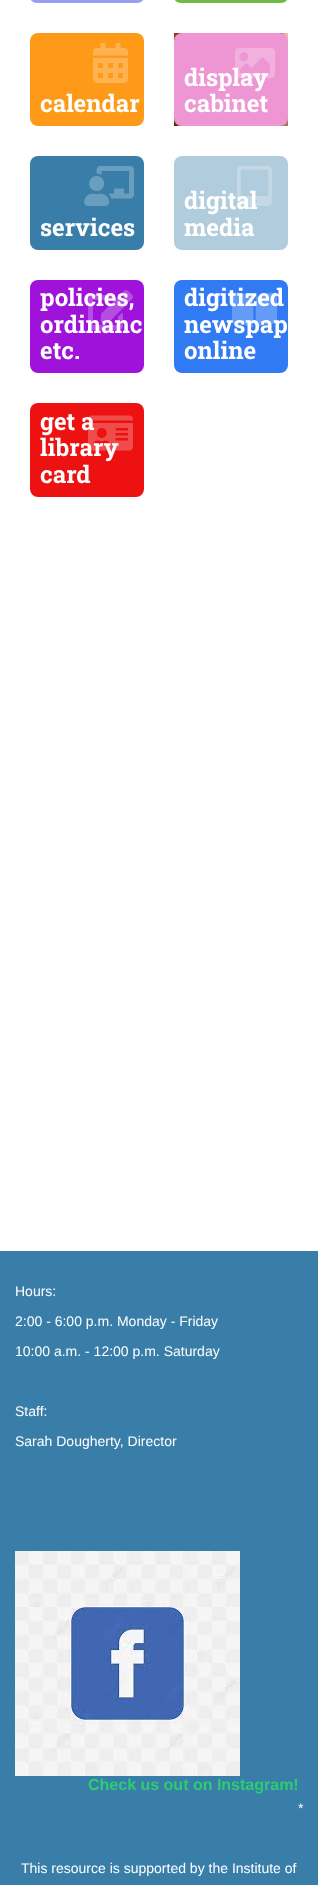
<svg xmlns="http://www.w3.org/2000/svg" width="318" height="1885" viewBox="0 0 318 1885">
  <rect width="100%" height="100%" fill="#fff"/>
  <image x="174" y="33" width="114" height="93" href="img/1.png"/>
  <rect x="174" y="33" width="114" height="93" rx="8" fill="#ed96d3"/>
  <rect x="30" y="156" width="114" height="94" rx="8" fill="#387ea8"/>
  <image x="84" y="166" width="50" height="40" href="img/3.png"/>
  <rect x="174" y="156" width="114" height="94" rx="8" fill="#b1ccdd"/>
  <rect x="30" y="-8" width="114" height="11" rx="8" fill="#979df1"/>
  <rect x="174" y="-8" width="114" height="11" rx="8" fill="#6fbb44"/>
  <rect x="30" y="33" width="114" height="93" rx="8" fill="#fe9a18"/>
  <image x="93" y="43" width="35" height="40" href="img/5.png"/>
  <rect x="30" y="280" width="114" height="93" rx="8" fill="#9e12da"/>
  <rect x="174" y="280" width="114" height="93" rx="8" fill="#307af3"/>
  <rect x="30" y="403" width="114" height="94" rx="8" fill="#ed1111"/>
  <path d="M0 1251h318v634H0z" fill="#387ea8"/>
  <image x="15" y="1551" width="225" height="225" href="img/9.png"/>
  <text x="184" y="86" font-family="Roboto Slab" font-size="24" font-weight="bold" fill="#fff">display</text>
  <image x="235" y="48" width="40" height="30" href="img/2.png"/>
  <g font-family="Roboto Slab" font-size="24" font-weight="bold" fill="#fff">
    <text x="184" y="112">cabinet</text>
    <text x="40" y="236">services</text>
    <text x="184" y="209">digital</text>
  </g>
  <image x="237" y="166" width="35" height="40" href="img/4.png"/>
  <g font-family="Roboto Slab" font-size="24" font-weight="bold" fill="#fff">
    <text x="184" y="236">media</text>
    <text x="40" y="112">calendar</text>
    <text x="40" y="306">policies,</text>
    <text x="40" y="333">ordinanc</text>
    <text x="40" y="359">etc.</text>
  </g>
  <image x="88" y="290" width="45" height="40" href="img/6.png"/>
  <g font-family="Roboto Slab" font-size="24" font-weight="bold" fill="#fff">
    <text x="184" y="306">digitized</text>
    <text x="184" y="333">newspap</text>
    <text x="184" y="359">online</text>
  </g>
  <image x="232" y="292" width="45" height="36" href="img/7.png"/>
  <g font-family="Roboto Slab" font-size="24" font-weight="bold" fill="#fff">
    <text x="40" y="430">get a</text>
    <text x="40" y="456">library</text>
    <text x="40" y="483">card</text>
  </g>
  <image x="88" y="415" width="45" height="36" href="img/8.png"/>
  <g font-family="Liberation Sans" font-size="14" fill="#fff">
    <text x="15" y="1296">Hours:</text>
    <text x="15" y="1326">2:00 - 6:00 p.m. Monday - Friday</text>
    <text x="15" y="1356">10:00 a.m. - 12:00 p.m. Saturday</text>
    <text x="15" y="1416">Staff:</text>
    <text x="15" y="1446">Sarah Dougherty, Director</text>
  </g>
  <text x="88" y="1790" font-family="Liberation Sans" font-size="16" font-weight="bold" fill="#2ecc71">Check us out on Instagram!</text>
  <g font-family="Liberation Sans" font-size="14" fill="#fff">
    <text x="298" y="1813">*</text>
    <text x="21" y="1873">This resource is supported by the Institute of</text>
  </g>
</svg>
